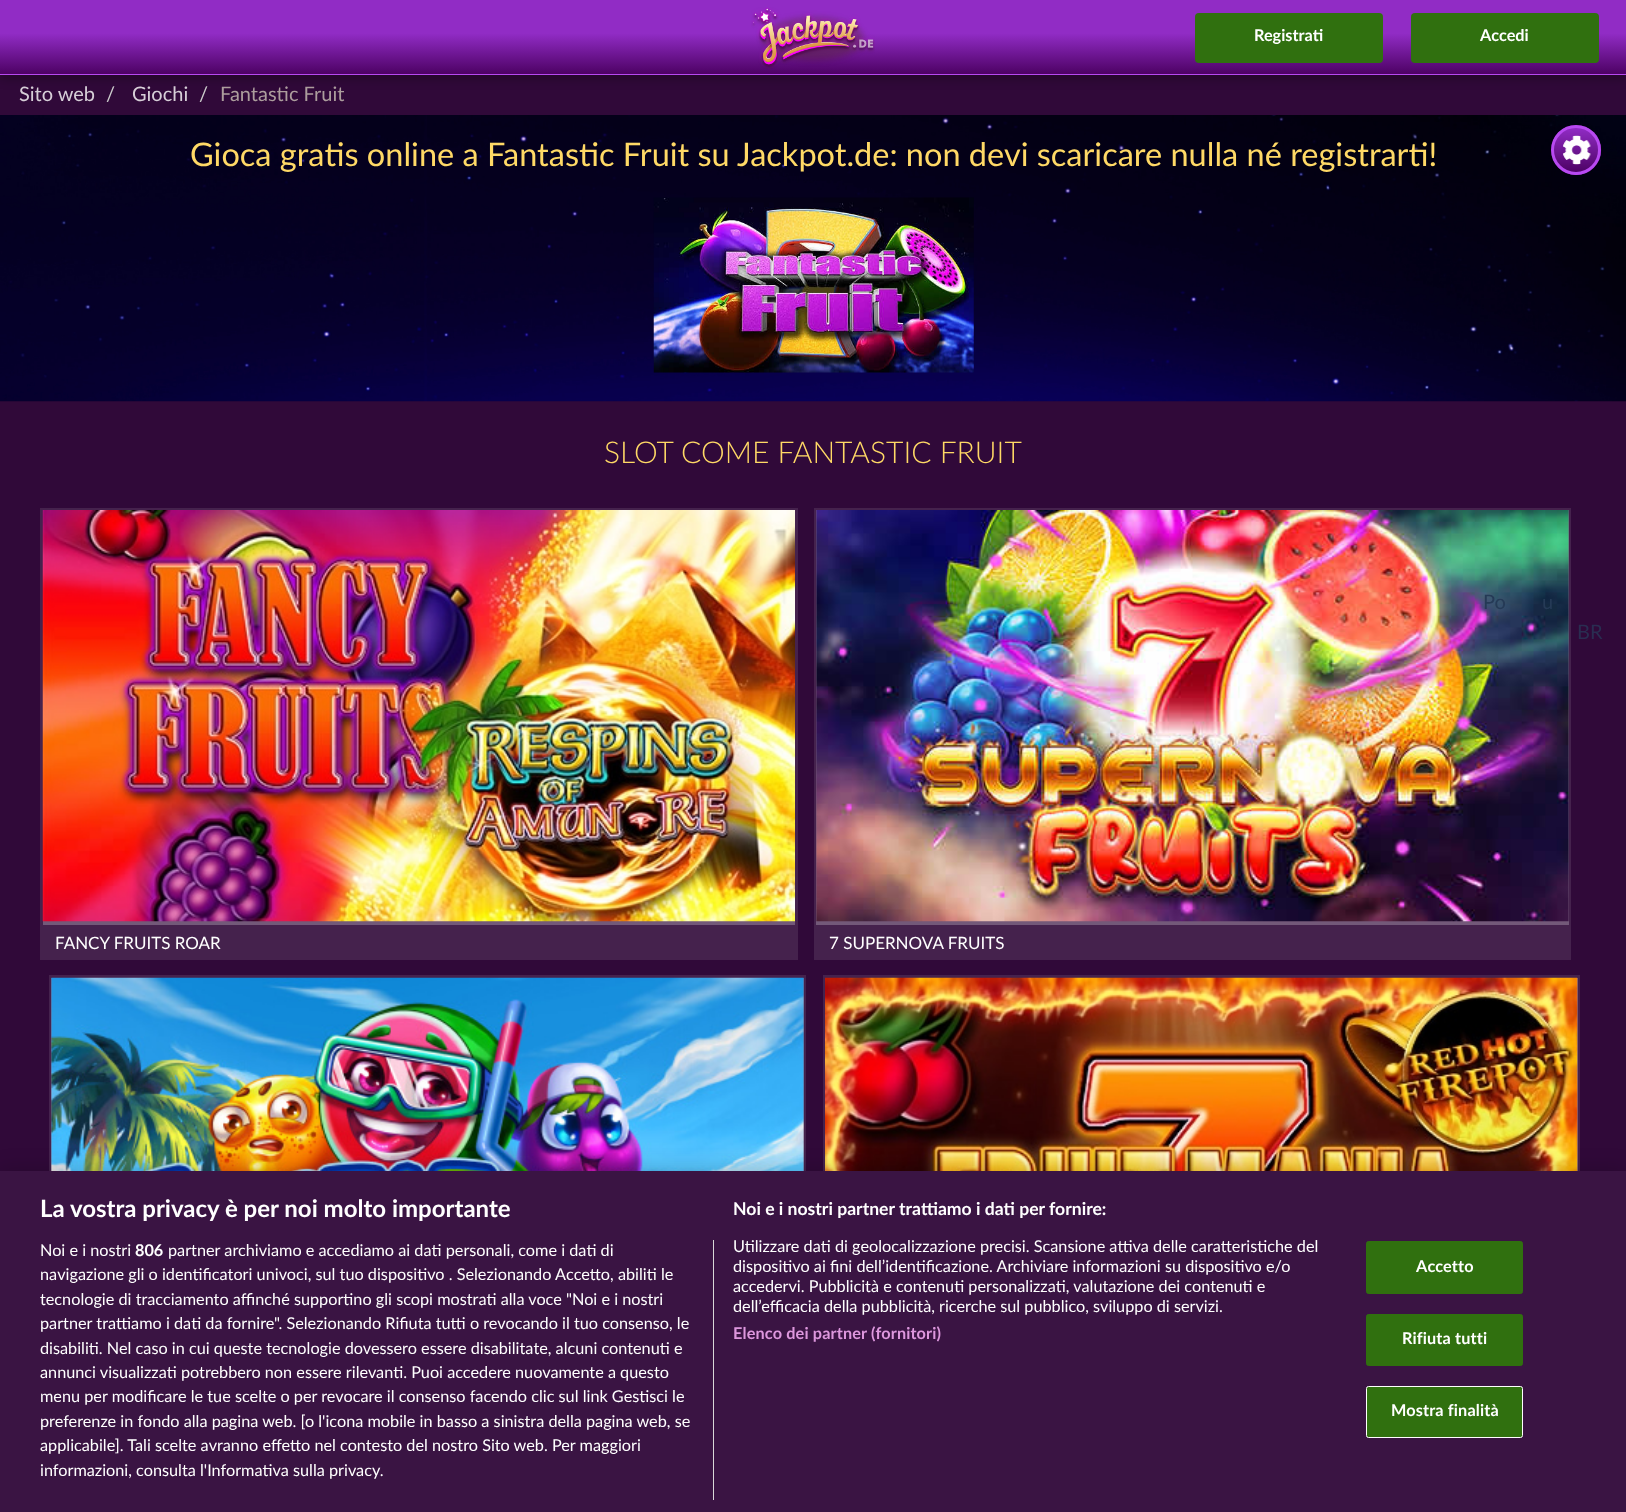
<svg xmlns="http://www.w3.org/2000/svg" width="1626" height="1512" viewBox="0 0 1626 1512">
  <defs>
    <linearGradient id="g1" gradientUnits="userSpaceOnUse" x1="813" y1="0" x2="813" y2="74"><stop offset="0.45" stop-color="#912cc5"/><stop offset="1" stop-color="#4d0264"/></linearGradient>
  </defs>
  <rect width="100%" height="100%" fill="#300939"/>
  <path d="M0 3h1626v75H0z" fill="#0000004d" filter="blur(5.5px)"/>
  <path d="M0 0h1626v74H0z" fill="url(#g1)"/>
  <path d="M0 74h1626v1H0z" fill="#b849f1"/>
  <image x="751" y="7" width="124" height="62" href="img/1.png"/>
  <rect x="1195" y="13" width="188" height="50" rx="4" fill="#30700f"/>
  <rect x="1411" y="13" width="188" height="50" rx="4" fill="#30700f"/>
  <image x="0" y="115" width="1626" height="287" href="img/2.png"/>
  <image x="653" y="197" width="321" height="176" href="img/3.png"/>
  <path d="M40 508h758v452H40z" fill="#45224d"/>
  <path d="M43 921h752v4H43z" fill="#735979"/>
  <image x="42" y="510" width="753" height="412" href="img/4.png"/>
  <path d="M814 508h757v452H814z" fill="#45224d"/>
  <path d="M816 510h753v415H816z" fill="#735979"/>
  <image x="816" y="510" width="753" height="412" href="img/5.png"/>
  <path d="M49 975h757v196H49z" fill="#45224d"/>
  <path d="M51 978h753v193H51z" fill="#735979"/>
  <image x="51" y="977" width="753" height="194" href="img/6.png"/>
  <path d="M823 975h757v196H823z" fill="#45224d"/>
  <path d="M1577 978h1v193H1577z" fill="#735979"/>
  <image x="825" y="977" width="753" height="194" href="img/7.png"/>
  <image x="1551" y="125" width="51" height="50" href="img/8.png"/>
  <circle cx="1576" cy="150" r="23.5" fill="none" stroke="#b849f1" stroke-width="3"/>
  <path d="M0 1171h1626v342H0z" fill="#00000033" filter="blur(11px)"/>
  <path d="M0 1171h1626v341H0z" fill="#3a1443"/>
  <path d="M713 1240h1v260H713z" fill="#d8d8d8"/>
  <rect x="1366.5" y="1241.5" width="156" height="52" rx="2" fill="#30700f" stroke="#30700f"/>
  <rect x="1366.5" y="1314.5" width="156" height="51" rx="2" fill="#30700f" stroke="#30700f"/>
  <rect x="1366.5" y="1386.5" width="156" height="51" rx="2" fill="#30700f" stroke="#fff"/>
  <g font-family="Lato" font-size="16.25" font-weight="bold" fill="#fff">
    <text x="1254" y="41">Registrati</text>
    <text x="1480" y="41">Accedi</text>
  </g>
  <text x="19" y="101" font-family="Lato" font-size="20" fill="#d6ced7">Sito web</text>
  <text x="106" y="101" font-family="Lato" font-size="20" fill="#ccc">/</text>
  <text x="132" y="101" font-family="Lato" font-size="20" fill="#d6ced7">Giochi</text>
  <text x="199" y="101" font-family="Lato" font-size="20" fill="#ccc">/</text>
  <text x="220" y="101" font-family="Lato" font-size="20" fill="#ac9d9d">Fantastic Fruit</text>
  <text x="190" y="166" font-family="Lato" font-size="32.5" fill="#ffd966">Gioca gratis online a Fantastic Fruit su Jackpot.de: non devi scaricare nulla né registrarti!</text>
  <text x="604" y="463" font-family="Lato" font-size="30" font-weight="300" fill="#ffd966">SLOT COME FANTASTIC FRUIT</text>
  <g font-family="Lato" font-size="17" fill="#fff">
    <text x="55" y="949">FANCY FRUITS ROAR</text>
    <text x="829" y="949">7 SUPERNOVA FRUITS</text>
  </g>
  <g font-family="Lato" font-size="20" fill="#253a56">
    <text x="1483" y="609">Po</text>
    <text x="1542" y="609">u</text>
  </g>
  <text x="1577" y="639" font-family="Lato" font-size="20" fill="#2a2d51">BR</text>
  <text x="40" y="1217" font-family="Lato" font-size="24" font-weight="bold" fill="#fff">La vostra privacy è per noi molto importante</text>
  <text x="733" y="1215" font-family="Lato" font-size="17.6" font-weight="bold" fill="#fff">Noi e i nostri partner trattiamo i dati per fornire:</text>
  <g font-family="Lato" font-size="16.25" fill="#fff">
    <text x="733" y="1252">Utilizzare dati di geolocalizzazione precisi. Scansione attiva delle caratteristiche del</text>
    <text x="733" y="1272">dispositivo ai fini dell’identificazione. Archiviare informazioni su dispositivo e/o</text>
    <text x="733" y="1292">accedervi. Pubblicità e contenuti personalizzati, valutazione dei contenuti e</text>
    <text x="733" y="1312">dell’efficacia della pubblicità, ricerche sul pubblico, sviluppo di servizi.</text>
  </g>
  <text x="733" y="1339" font-family="Lato" font-size="16.25" font-weight="bold" letter-spacing="0.15" fill="#dd97dd">Elenco dei partner (fornitori)</text>
  <text x="40" y="1256" font-family="Lato" font-size="16.25" fill="#fff">Noi e i nostri</text>
  <text x="135" y="1256" font-family="Lato" font-size="16.25" font-weight="bold" fill="#fff">806</text>
  <g font-family="Lato" font-size="16.25" fill="#fff">
    <text x="168" y="1256">partner archiviamo e accediamo ai dati personali, come i dati di</text>
    <text x="40" y="1280">navigazione gli o identificatori univoci, sul tuo dispositivo . Selezionando Accetto, abiliti le</text>
    <text x="40" y="1305">tecnologie di tracciamento affinché supportino gli scopi mostrati alla voce "Noi e i nostri</text>
    <text x="40" y="1329">partner trattiamo i dati da fornire". Selezionando Rifiuta tutti o revocando il tuo consenso, le</text>
    <text x="40" y="1354">disabiliti. Nel caso in cui queste tecnologie dovessero essere disabilitate, alcuni contenuti e</text>
    <text x="40" y="1378">annunci visualizzati potrebbero non essere rilevanti. Puoi accedere nuovamente a questo</text>
    <text x="40" y="1402">menu per modificare le tue scelte o per revocare il consenso facendo clic sul link Gestisci le</text>
    <text x="40" y="1427">preferenze in fondo alla pagina web. [o l'icona mobile in basso a sinistra della pagina web, se</text>
    <text x="40" y="1451">applicabile]. Tali scelte avranno effetto nel contesto del nostro Sito web. Per maggiori</text>
    <text x="40" y="1476">informazioni, consulta l'Informativa sulla privacy.</text>
  </g>
  <g font-family="Lato" font-size="16.25" font-weight="bold" letter-spacing="0.15" fill="#fff">
    <text x="1416" y="1272">Accetto</text>
    <text x="1402" y="1344">Rifiuta tutti</text>
    <text x="1391" y="1416">Mostra finalità</text>
  </g>
</svg>
